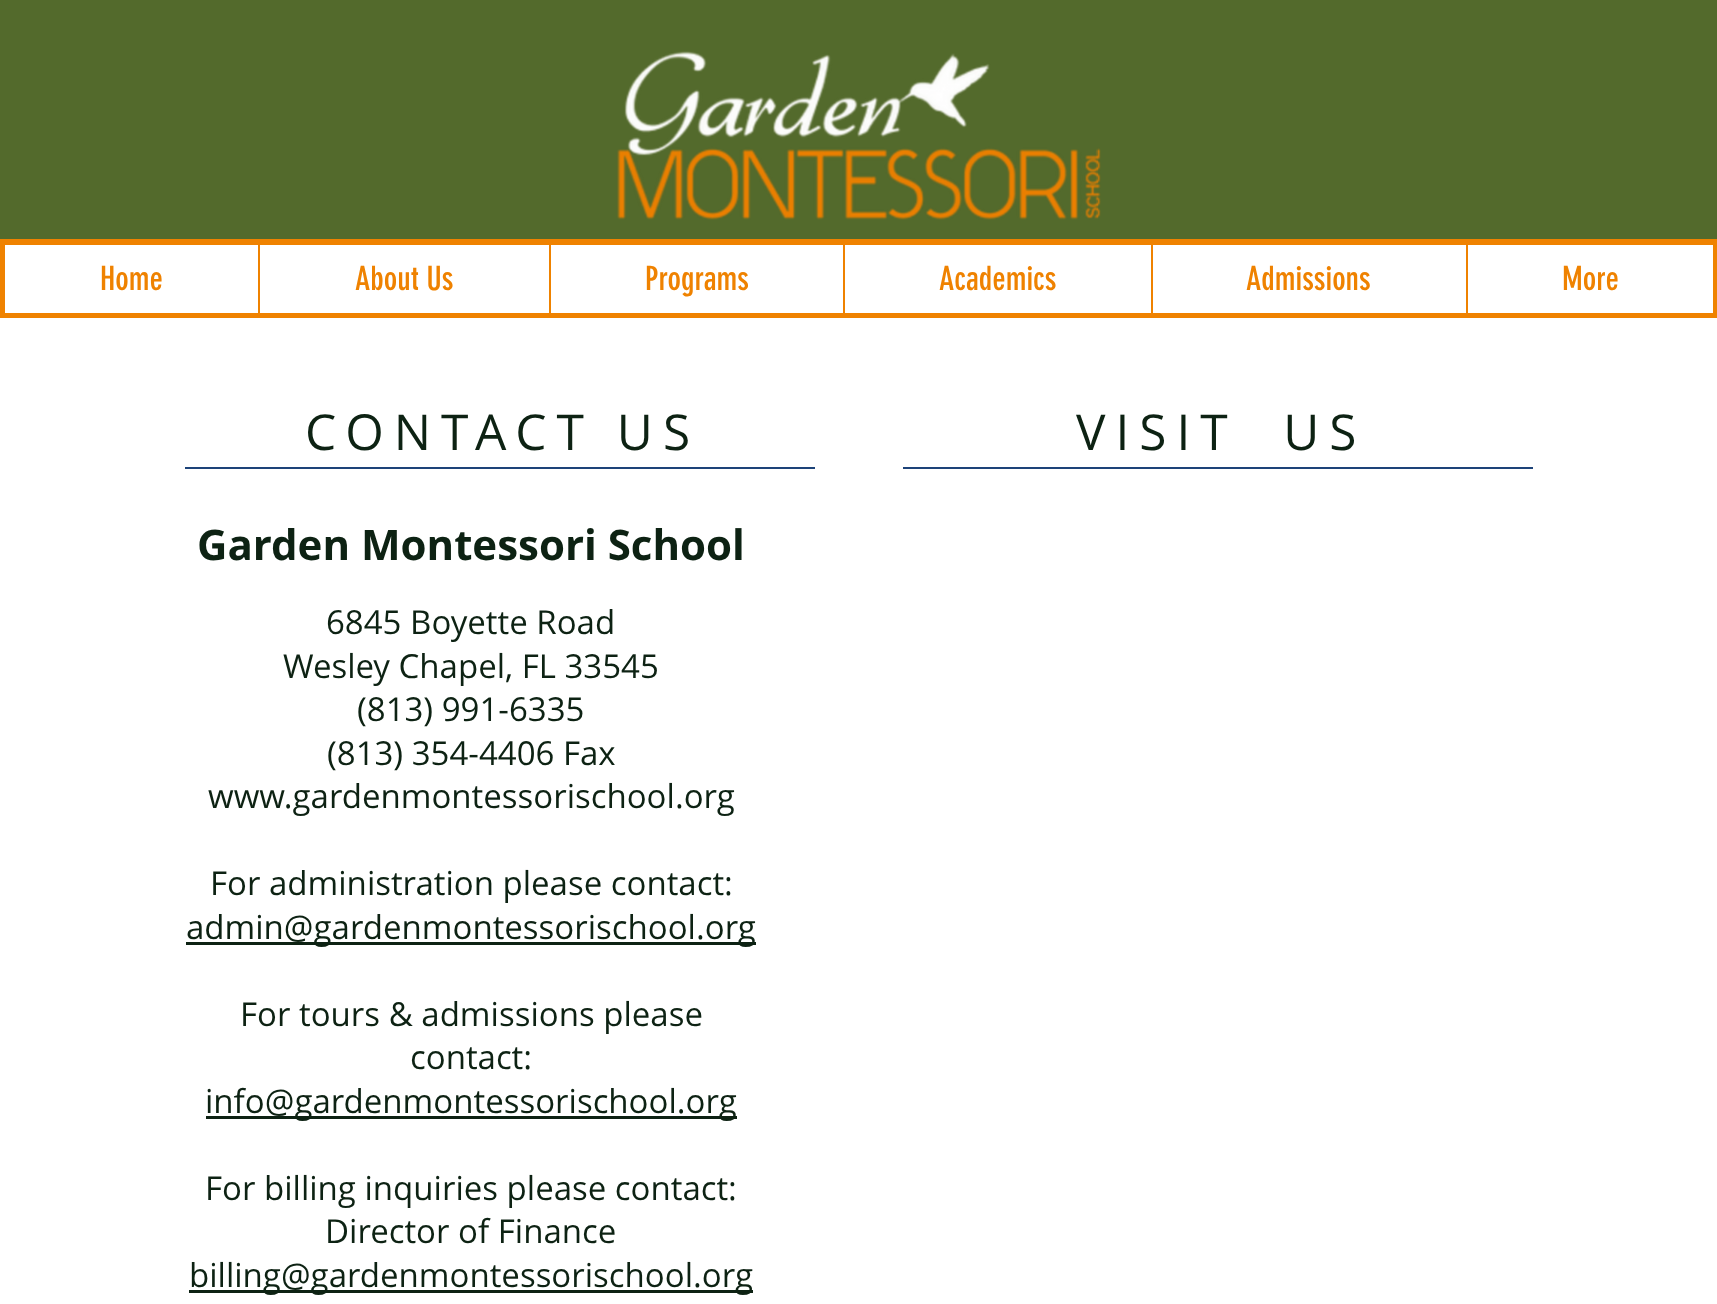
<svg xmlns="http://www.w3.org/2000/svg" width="1717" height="1304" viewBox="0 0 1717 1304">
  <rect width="100%" height="100%" fill="#fff"/>
  <path d="M0 0h1717v239H0z" fill="#536a2c"/>
  <image x="617" y="51" width="484" height="169" href="img/1.png"/>
  <path d="M0 239h1717v1H0z" fill="#ef8200"/>
  <path d="M2.5 242.5h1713v73H2.5z" fill="none" stroke="#ef8200" stroke-width="5"/>
  <path d="M258 245h2v69H258z" fill="#ef8200"/>
  <path d="M549 245h2v69H549z" fill="#ef8200"/>
  <path d="M843 245h2v69H843z" fill="#ef8200"/>
  <path d="M1151 245h2v69H1151z" fill="#ef8200"/>
  <path d="M1466 245h2v69H1466z" fill="#ef8200"/>
  <path d="M185 467h630v2H185z" fill="#1d4379"/>
  <path d="M186 942h570v3H186z" fill="#0d2213"/>
  <path d="M206 1116h531v3H206z" fill="#0d2213"/>
  <path d="M189 1290h564v3H189z" fill="#0d2213"/>
  <path d="M903 467h630v2H903z" fill="#1d4379"/>
  <g font-family="'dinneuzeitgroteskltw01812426'" font-size="33" fill="#ef8200">
    <text x="100" y="290">Home</text>
    <text x="355" y="290">About Us</text>
    <text x="645" y="290">Programs</text>
    <text x="939" y="290">Academics</text>
    <text x="1246" y="290">Admissions</text>
    <text x="1562" y="290">More</text>
  </g>
  <text x="305" y="450" font-family="Open Sans" font-size="49.5" letter-spacing="10" fill="#0d2213">CONTACT US</text>
  <text x="197" y="560" font-family="Open Sans" font-size="42" font-weight="bold" fill="#0d2213">Garden Montessori School</text>
  <g font-family="Open Sans" font-size="33" fill="#0d2213">
    <text x="326" y="634">6845 Boyette Road</text>
    <text x="283" y="678">Wesley Chapel, FL 33545</text>
    <text x="357" y="721">(813) 991-6335</text>
    <text x="327" y="765">(813) 354-4406 Fax</text>
    <text x="208" y="808">www.gardenmontessorischool.org</text>
    <text x="210" y="895">For administration please contact:</text>
    <text x="186" y="939">admin@gardenmontessorischool.org</text>
    <text x="240" y="1026">For tours &amp; admissions please</text>
    <text x="410" y="1069">contact:</text>
    <text x="205" y="1113">info@gardenmontessorischool.org</text>
    <text x="205" y="1200">For billing inquiries please contact:</text>
    <text x="325" y="1243">Director of Finance</text>
    <text x="189" y="1287">billing@gardenmontessorischool.org</text>
  </g>
  <text x="1076" y="450" font-family="Open Sans" font-size="49.5" letter-spacing="10" fill="#0d2213" xml:space="preserve">VISIT  US</text>
</svg>
